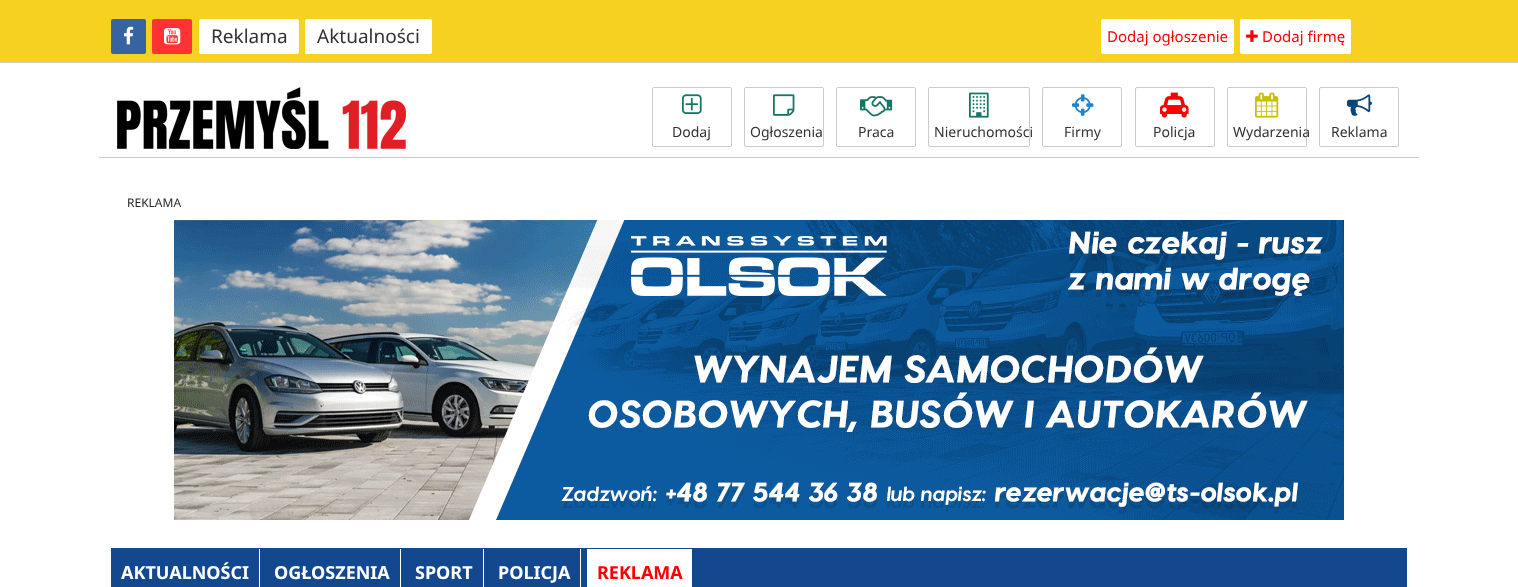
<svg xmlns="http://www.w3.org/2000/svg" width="1518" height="587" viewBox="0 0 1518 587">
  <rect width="100%" height="100%" fill="#fff"/>
  <path d="M0 0h1518v62H0z" fill="#f7d11f"/>
  <path d="M0 62h1518v1H0z" fill="#ccc"/>
  <rect x="111" y="19" width="35" height="35" rx="2" fill="#3664a2"/>
  <image x="124" y="26" width="10" height="19" href="img/1.png"/>
  <rect x="152" y="19" width="40" height="35" rx="2" fill="#ff3334"/>
  <image x="164" y="28" width="17" height="17" href="img/2.png"/>
  <rect x="199" y="19" width="100" height="35" rx="2" fill="#fff"/>
  <rect x="305" y="19" width="127" height="35" rx="2" fill="#fff"/>
  <rect x="1101" y="19" width="133" height="35" rx="2" fill="#fff"/>
  <rect x="1240" y="19" width="111" height="35" rx="2" fill="#fff"/>
  <image x="1246" y="30" width="12" height="12" href="img/3.png"/>
  <image x="117" y="87" width="289" height="62" href="img/4.png"/>
  <rect x="652.5" y="87.5" width="79" height="59" rx="1.5" fill="none" stroke="#cbcbcb"/>
  <image x="682" y="94" width="20" height="20" href="img/5.png"/>
  <rect x="744.5" y="87.5" width="79" height="59" rx="1.5" fill="none" stroke="#cbcbcb"/>
  <image x="773" y="94" width="22" height="22" href="img/6.png"/>
  <rect x="836.5" y="87.5" width="79" height="59" rx="1.5" fill="none" stroke="#cbcbcb"/>
  <image x="860" y="96" width="33" height="21" href="img/7.png"/>
  <rect x="928.5" y="87.5" width="101" height="59" rx="1.5" fill="none" stroke="#cbcbcb"/>
  <image x="969" y="92" width="20" height="26" href="img/8.png"/>
  <rect x="1042.5" y="87.5" width="79" height="59" rx="1.5" fill="none" stroke="#cbcbcb"/>
  <image x="1072" y="94" width="22" height="22" href="img/9.png"/>
  <rect x="1135.5" y="87.5" width="79" height="59" rx="1.5" fill="none" stroke="#cbcbcb"/>
  <image x="1160" y="92" width="29" height="26" href="img/10.png"/>
  <rect x="1227.5" y="87.5" width="79" height="59" rx="1.5" fill="none" stroke="#cbcbcb"/>
  <image x="1255" y="92" width="24" height="26" href="img/11.png"/>
  <rect x="1319.5" y="87.5" width="79" height="59" rx="1.5" fill="none" stroke="#cbcbcb"/>
  <image x="1347" y="94" width="25" height="22" href="img/12.png"/>
  <path d="M99 157h1320v1H99z" fill="#c8c9ca"/>
  <image x="174" y="220" width="1170" height="300" href="img/13.png"/>
  <path d="M111 548h1296v39H111z" fill="#13488e"/>
  <path d="M259 549h1v38H259z" fill="#fff"/>
  <path d="M400 549h1v38H400z" fill="#fff"/>
  <path d="M483 549h1v38H483z" fill="#fff"/>
  <path d="M580 549h1v38H580z" fill="#fff"/>
  <path d="M587 549h105v38H587z" fill="#fff"/>
  <g font-family="Noto Sans" font-size="19" fill="#333">
    <text x="211" y="43">Reklama</text>
    <text x="317" y="43">Aktualności</text>
  </g>
  <g font-family="Noto Sans" font-size="15" fill="#f00">
    <text x="1107" y="42">Dodaj ogłoszenie</text>
    <text x="1262" y="42">Dodaj firmę</text>
  </g>
  <g font-family="Noto Sans" font-size="14" fill="#333">
    <text x="672" y="137">Dodaj</text>
    <text x="750" y="137">Ogłoszenia</text>
    <text x="858" y="137">Praca</text>
    <text x="934" y="137">Nieruchomości</text>
    <text x="1064" y="137">Firmy</text>
    <text x="1153" y="137">Policja</text>
    <text x="1233" y="137">Wydarzenia</text>
    <text x="1331" y="137">Reklama</text>
  </g>
  <text x="127" y="207" font-family="Noto Sans" font-size="12" fill="#212529">REKLAMA</text>
  <g font-family="Noto Sans" font-size="18" font-weight="bold" fill="#fff">
    <text x="121" y="579">AKTUALNOŚCI</text>
    <text x="274" y="579">OGŁOSZENIA</text>
    <text x="415" y="579">SPORT</text>
    <text x="498" y="579">POLICJA</text>
  </g>
  <text x="597" y="579" font-family="Noto Sans" font-size="18" font-weight="bold" fill="#f00">REKLAMA</text>
</svg>
